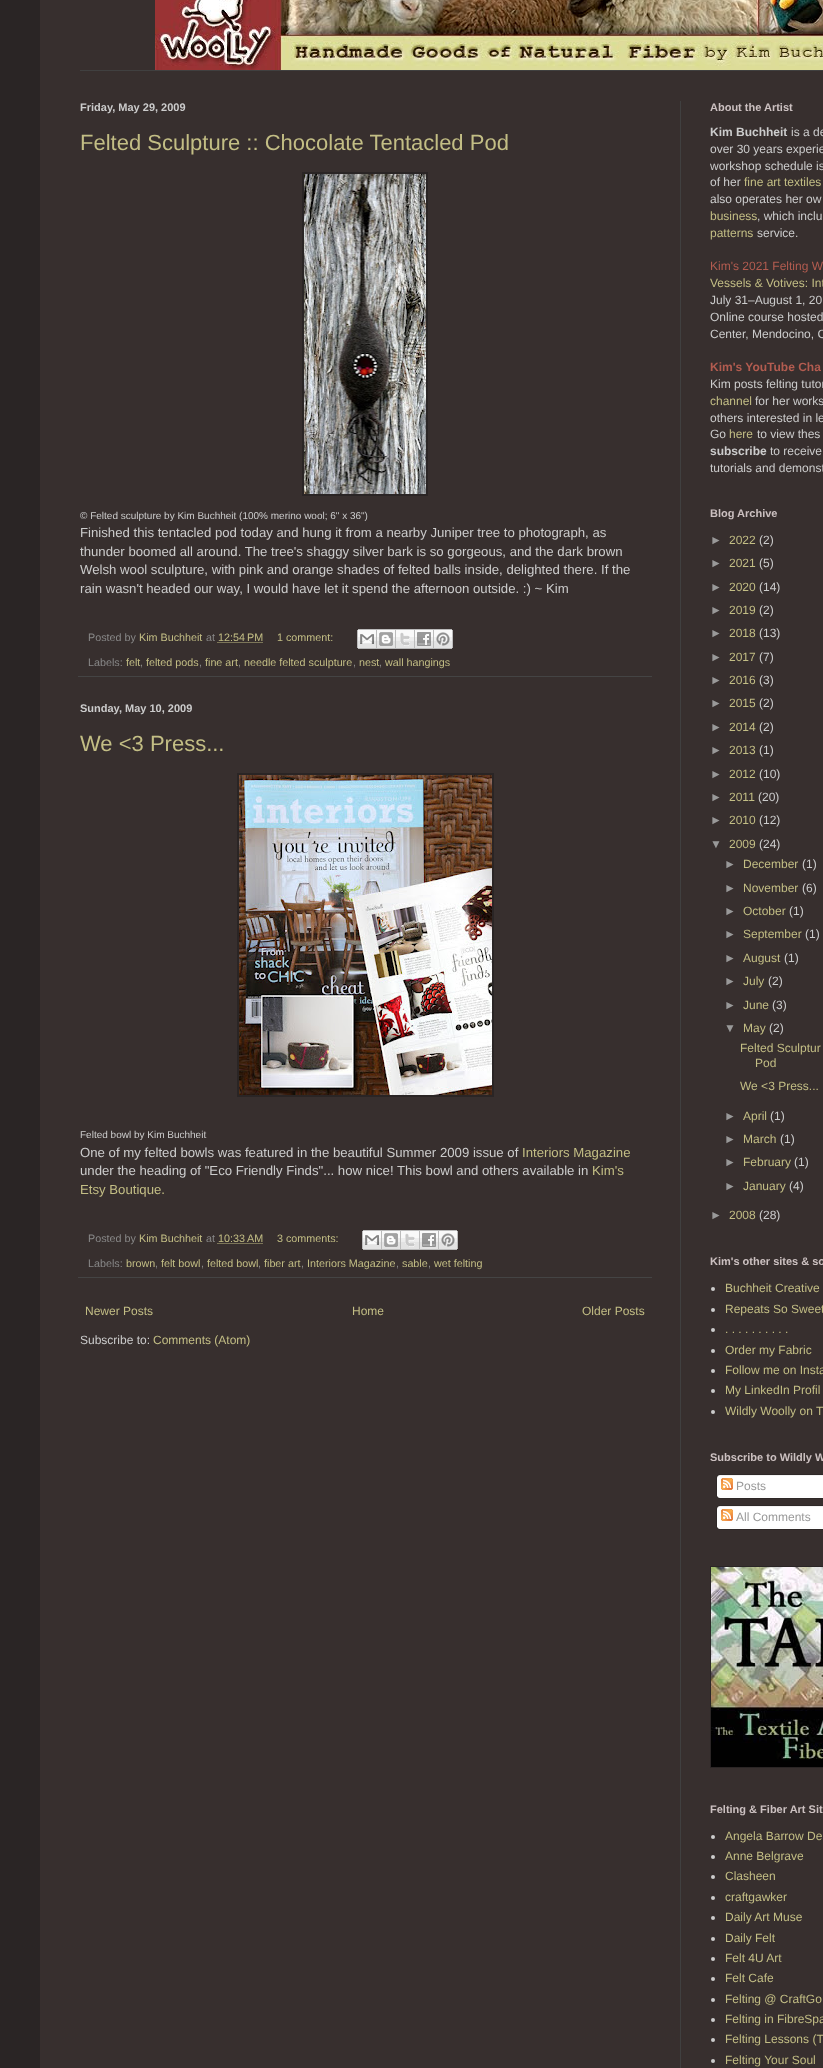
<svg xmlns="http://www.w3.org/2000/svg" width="823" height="2068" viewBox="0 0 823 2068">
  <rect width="100%" height="100%" fill="#2a2525"/>
  <path d="M40 0h783v2068H40z" fill="#372f2e"/>
  <image x="155" y="0" width="668" height="70" href="img/1.png"/>
  <path d="M80 70h743v1H80z" fill="#404040"/>
  <path d="M680 101h1v1967H680z" fill="#404040"/>
  <path d="M302 172h126v324H302z" fill="#2a2525"/>
  <image x="304" y="174" width="122" height="320" href="img/2.png"/>
  <path d="M78 676h574v1H78z" fill="#444"/>
  <path d="M217.5 642.5H263" fill="none" stroke="#c3be85" stroke-dasharray="1 1"/>
  <image x="357" y="629" width="20" height="20" href="img/3.png"/>
  <image x="377" y="629" width="19" height="20" href="img/4.png"/>
  <image x="396" y="629" width="19" height="20" href="img/5.png"/>
  <image x="415" y="629" width="19" height="20" href="img/6.png"/>
  <image x="434" y="629" width="19" height="20" href="img/7.png"/>
  <path d="M237 773h257v324H237z" fill="#2a2525"/>
  <image x="239" y="775" width="253" height="320" href="img/8.png"/>
  <path d="M78 1277h574v1H78z" fill="#444"/>
  <path d="M217.5 1243.5H263" fill="none" stroke="#c3be85" stroke-dasharray="1 1"/>
  <image x="362" y="1230" width="20" height="20" href="img/3.png"/>
  <image x="382" y="1230" width="19" height="20" href="img/4.png"/>
  <image x="401" y="1230" width="19" height="20" href="img/5.png"/>
  <image x="420" y="1230" width="19" height="20" href="img/6.png"/>
  <image x="439" y="1230" width="19" height="20" href="img/7.png"/>
  <circle cx="713" cy="1289" r="2" fill="#ccc"/>
  <circle cx="713" cy="1310" r="2" fill="#ccc"/>
  <circle cx="713" cy="1330" r="2" fill="#ccc"/>
  <circle cx="713" cy="1351" r="2" fill="#ccc"/>
  <circle cx="713" cy="1371" r="2" fill="#ccc"/>
  <circle cx="713" cy="1391" r="2" fill="#ccc"/>
  <circle cx="713" cy="1412" r="2" fill="#ccc"/>
  <image x="716" y="1474" width="107" height="22" href="img/9.png"/>
  <image x="721" y="1478" width="12" height="12" href="img/10.png"/>
  <image x="716" y="1496" width="107" height="3" href="img/11.png"/>
  <image x="716" y="1505" width="107" height="22" href="img/9.png"/>
  <image x="721" y="1509" width="12" height="12" href="img/10.png"/>
  <image x="716" y="1527" width="107" height="3" href="img/11.png"/>
  <path d="M710 1566h113v202H710z" fill="#2a2525"/>
  <image x="711" y="1567" width="112" height="200" href="img/12.png"/>
  <circle cx="713" cy="1837" r="2" fill="#ccc"/>
  <circle cx="713" cy="1857" r="2" fill="#ccc"/>
  <circle cx="713" cy="1877" r="2" fill="#ccc"/>
  <circle cx="713" cy="1898" r="2" fill="#ccc"/>
  <circle cx="713" cy="1918" r="2" fill="#ccc"/>
  <circle cx="713" cy="1939" r="2" fill="#ccc"/>
  <circle cx="713" cy="1959" r="2" fill="#ccc"/>
  <circle cx="713" cy="1979" r="2" fill="#ccc"/>
  <circle cx="713" cy="2000" r="2" fill="#ccc"/>
  <circle cx="713" cy="2020" r="2" fill="#ccc"/>
  <circle cx="713" cy="2040" r="2" fill="#ccc"/>
  <circle cx="713" cy="2061" r="2" fill="#ccc"/>
  <text x="80" y="111" font-family="Liberation Sans" font-size="11" font-weight="bold" fill="#ccc">Friday, May 29, 2009</text>
  <text x="80" y="150" font-family="Liberation Sans" font-size="22" fill="#c3be85">Felted Sculpture :: Chocolate Tentacled Pod</text>
  <text x="80" y="519" font-family="Liberation Sans" font-size="10" fill="#ccc">© Felted sculpture by Kim Buchheit (100% merino wool; 6" x 36")</text>
  <g font-family="Liberation Sans" font-size="13.2" fill="#ccc">
    <text x="80" y="537">Finished this tentacled pod today and hung it from a nearby Juniper tree to photograph, as</text>
    <text x="80" y="556">thunder boomed all around. The tree's shaggy silver bark is so gorgeous, and the dark brown</text>
    <text x="80" y="574">Welsh wool sculpture, with pink and orange shades of felted balls inside, delighted there. If the</text>
    <text x="80" y="593">rain wasn't headed our way, I would have let it spend the afternoon outside. :) ~ Kim</text>
  </g>
  <text x="88" y="641" font-family="Liberation Sans" font-size="10.75" fill="#888">Posted by</text>
  <text x="139" y="641" font-family="Liberation Sans" font-size="10.75" fill="#c3be85">Kim Buchheit</text>
  <text x="206" y="641" font-family="Liberation Sans" font-size="10.75" fill="#888">at</text>
  <g font-family="Liberation Sans" font-size="10.75" fill="#c3be85">
    <text x="218" y="641">12:54 PM</text>
    <text x="277" y="641">1 comment:</text>
  </g>
  <text x="88" y="666" font-family="Liberation Sans" font-size="10.75" fill="#888">Labels:</text>
  <text x="126" y="666" font-family="Liberation Sans" font-size="10.75" fill="#c3be85">felt</text>
  <text x="140" y="666" font-family="Liberation Sans" font-size="10.75" fill="#888">,</text>
  <text x="146" y="666" font-family="Liberation Sans" font-size="10.75" fill="#c3be85">felted pods</text>
  <text x="199" y="666" font-family="Liberation Sans" font-size="10.75" fill="#888">,</text>
  <text x="205" y="666" font-family="Liberation Sans" font-size="10.75" fill="#c3be85">fine art</text>
  <text x="238" y="666" font-family="Liberation Sans" font-size="10.75" fill="#888">,</text>
  <text x="244" y="666" font-family="Liberation Sans" font-size="10.75" fill="#c3be85">needle felted sculpture</text>
  <text x="353" y="666" font-family="Liberation Sans" font-size="10.75" fill="#888">,</text>
  <text x="359" y="666" font-family="Liberation Sans" font-size="10.75" fill="#c3be85">nest</text>
  <text x="379" y="666" font-family="Liberation Sans" font-size="10.75" fill="#888">,</text>
  <text x="385" y="666" font-family="Liberation Sans" font-size="10.75" fill="#c3be85">wall hangings</text>
  <text x="80" y="712" font-family="Liberation Sans" font-size="11" font-weight="bold" fill="#ccc">Sunday, May 10, 2009</text>
  <text x="80" y="751" font-family="Liberation Sans" font-size="22" fill="#c3be85">We &lt;3 Press...</text>
  <text x="80" y="1138" font-family="Liberation Sans" font-size="10" fill="#ccc">Felted bowl by Kim Buchheit</text>
  <text x="80" y="1157" font-family="Liberation Sans" font-size="13.2" fill="#ccc">One of my felted bowls was featured in the beautiful Summer 2009 issue of</text>
  <text x="522" y="1157" font-family="Liberation Sans" font-size="13.2" fill="#c3be85">Interiors Magazine</text>
  <text x="80" y="1175" font-family="Liberation Sans" font-size="13.2" fill="#ccc">under the heading of "Eco Friendly Finds"... how nice! This bowl and others available in</text>
  <g font-family="Liberation Sans" font-size="13.2" fill="#c3be85">
    <text x="592" y="1175">Kim's</text>
    <text x="80" y="1194">Etsy Boutique.</text>
  </g>
  <text x="88" y="1242" font-family="Liberation Sans" font-size="10.75" fill="#888">Posted by</text>
  <text x="139" y="1242" font-family="Liberation Sans" font-size="10.75" fill="#c3be85">Kim Buchheit</text>
  <text x="206" y="1242" font-family="Liberation Sans" font-size="10.75" fill="#888">at</text>
  <g font-family="Liberation Sans" font-size="10.75" fill="#c3be85">
    <text x="218" y="1242">10:33 AM</text>
    <text x="277" y="1242">3 comments:</text>
  </g>
  <text x="88" y="1267" font-family="Liberation Sans" font-size="10.75" fill="#888">Labels:</text>
  <text x="126" y="1267" font-family="Liberation Sans" font-size="10.75" fill="#c3be85">brown</text>
  <text x="155" y="1267" font-family="Liberation Sans" font-size="10.75" fill="#888">,</text>
  <text x="161" y="1267" font-family="Liberation Sans" font-size="10.75" fill="#c3be85">felt bowl</text>
  <text x="201" y="1267" font-family="Liberation Sans" font-size="10.75" fill="#888">,</text>
  <text x="207" y="1267" font-family="Liberation Sans" font-size="10.75" fill="#c3be85">felted bowl</text>
  <text x="258" y="1267" font-family="Liberation Sans" font-size="10.75" fill="#888">,</text>
  <text x="264" y="1267" font-family="Liberation Sans" font-size="10.75" fill="#c3be85">fiber art</text>
  <text x="301" y="1267" font-family="Liberation Sans" font-size="10.75" fill="#888">,</text>
  <text x="307" y="1267" font-family="Liberation Sans" font-size="10.75" fill="#c3be85">Interiors Magazine</text>
  <text x="396" y="1267" font-family="Liberation Sans" font-size="10.75" fill="#888">,</text>
  <text x="402" y="1267" font-family="Liberation Sans" font-size="10.75" fill="#c3be85">sable</text>
  <text x="428" y="1267" font-family="Liberation Sans" font-size="10.75" fill="#888">,</text>
  <text x="434" y="1267" font-family="Liberation Sans" font-size="10.75" fill="#c3be85">wet felting</text>
  <g font-family="Liberation Sans" font-size="12" fill="#c3be85">
    <text x="85" y="1315">Newer Posts</text>
    <text x="352" y="1315">Home</text>
    <text x="582" y="1315">Older Posts</text>
  </g>
  <text x="80" y="1344" font-family="Liberation Sans" font-size="12" fill="#ccc">Subscribe to:</text>
  <text x="153" y="1344" font-family="Liberation Sans" font-size="12" fill="#c3be85">Comments (Atom)</text>
  <text x="710" y="111" font-family="Liberation Sans" font-size="11" font-weight="bold" fill="#ccc1c1">About the Artist</text>
  <text x="710" y="136" font-family="Liberation Sans" font-size="12" font-weight="bold" fill="#ccc">Kim Buchheit</text>
  <g font-family="Liberation Sans" font-size="12" fill="#ccc">
    <text x="791" y="136">is a de</text>
    <text x="710" y="153">over 30 years experie</text>
    <text x="710" y="170">workshop schedule is</text>
    <text x="710" y="186">of her</text>
  </g>
  <text x="744" y="186" font-family="Liberation Sans" font-size="12" fill="#c3be85">fine art textiles</text>
  <text x="710" y="203" font-family="Liberation Sans" font-size="12" fill="#ccc">also operates her ow</text>
  <text x="710" y="220" font-family="Liberation Sans" font-size="12" fill="#c3be85">business</text>
  <text x="757" y="220" font-family="Liberation Sans" font-size="12" fill="#ccc">, which inclu</text>
  <text x="710" y="237" font-family="Liberation Sans" font-size="12" fill="#c3be85">patterns</text>
  <text x="757" y="237" font-family="Liberation Sans" font-size="12" fill="#ccc">service.</text>
  <text x="710" y="270" font-family="Liberation Sans" font-size="12" fill="#b35c50">Kim's 2021 Felting W</text>
  <text x="710" y="287" font-family="Liberation Sans" font-size="12" fill="#c3be85">Vessels &amp; Votives: Int</text>
  <g font-family="Liberation Sans" font-size="12" fill="#ccc">
    <text x="710" y="304">July 31–August 1, 20</text>
    <text x="710" y="321">Online course hosted</text>
    <text x="710" y="338">Center, Mendocino, C</text>
  </g>
  <text x="710" y="371" font-family="Liberation Sans" font-size="12" font-weight="bold" fill="#b35c50">Kim's YouTube Cha</text>
  <text x="710" y="388" font-family="Liberation Sans" font-size="12" fill="#ccc">Kim posts felting tutor</text>
  <text x="710" y="405" font-family="Liberation Sans" font-size="12" fill="#c3be85">channel</text>
  <g font-family="Liberation Sans" font-size="12" fill="#ccc">
    <text x="755" y="405">for her works</text>
    <text x="710" y="422">others interested in le</text>
    <text x="710" y="438">Go</text>
  </g>
  <text x="729" y="438" font-family="Liberation Sans" font-size="12" fill="#c3be85">here</text>
  <text x="757" y="438" font-family="Liberation Sans" font-size="12" fill="#ccc">to view thes</text>
  <text x="710" y="455" font-family="Liberation Sans" font-size="12" font-weight="bold" fill="#ccc">subscribe</text>
  <g font-family="Liberation Sans" font-size="12" fill="#ccc">
    <text x="770" y="455">to receive</text>
    <text x="710" y="472">tutorials and demonst</text>
  </g>
  <text x="710" y="517" font-family="Liberation Sans" font-size="11" font-weight="bold" fill="#ccc1c1">Blog Archive</text>
  <text x="710" y="544" font-family="Liberation Sans" font-size="12" fill="#999">►</text>
  <text x="729" y="544" font-family="Liberation Sans" font-size="12" fill="#c3be85">2022</text>
  <text x="759" y="544" font-family="Liberation Sans" font-size="12" fill="#ccc">(2)</text>
  <text x="710" y="567" font-family="Liberation Sans" font-size="12" fill="#999">►</text>
  <text x="729" y="567" font-family="Liberation Sans" font-size="12" fill="#c3be85">2021</text>
  <text x="759" y="567" font-family="Liberation Sans" font-size="12" fill="#ccc">(5)</text>
  <text x="710" y="591" font-family="Liberation Sans" font-size="12" fill="#999">►</text>
  <text x="729" y="591" font-family="Liberation Sans" font-size="12" fill="#c3be85">2020</text>
  <text x="759" y="591" font-family="Liberation Sans" font-size="12" fill="#ccc">(14)</text>
  <text x="710" y="614" font-family="Liberation Sans" font-size="12" fill="#999">►</text>
  <text x="729" y="614" font-family="Liberation Sans" font-size="12" fill="#c3be85">2019</text>
  <text x="759" y="614" font-family="Liberation Sans" font-size="12" fill="#ccc">(2)</text>
  <text x="710" y="637" font-family="Liberation Sans" font-size="12" fill="#999">►</text>
  <text x="729" y="637" font-family="Liberation Sans" font-size="12" fill="#c3be85">2018</text>
  <text x="759" y="637" font-family="Liberation Sans" font-size="12" fill="#ccc">(13)</text>
  <text x="710" y="661" font-family="Liberation Sans" font-size="12" fill="#999">►</text>
  <text x="729" y="661" font-family="Liberation Sans" font-size="12" fill="#c3be85">2017</text>
  <text x="759" y="661" font-family="Liberation Sans" font-size="12" fill="#ccc">(7)</text>
  <text x="710" y="684" font-family="Liberation Sans" font-size="12" fill="#999">►</text>
  <text x="729" y="684" font-family="Liberation Sans" font-size="12" fill="#c3be85">2016</text>
  <text x="759" y="684" font-family="Liberation Sans" font-size="12" fill="#ccc">(3)</text>
  <text x="710" y="707" font-family="Liberation Sans" font-size="12" fill="#999">►</text>
  <text x="729" y="707" font-family="Liberation Sans" font-size="12" fill="#c3be85">2015</text>
  <text x="759" y="707" font-family="Liberation Sans" font-size="12" fill="#ccc">(2)</text>
  <text x="710" y="731" font-family="Liberation Sans" font-size="12" fill="#999">►</text>
  <text x="729" y="731" font-family="Liberation Sans" font-size="12" fill="#c3be85">2014</text>
  <text x="759" y="731" font-family="Liberation Sans" font-size="12" fill="#ccc">(2)</text>
  <text x="710" y="754" font-family="Liberation Sans" font-size="12" fill="#999">►</text>
  <text x="729" y="754" font-family="Liberation Sans" font-size="12" fill="#c3be85">2013</text>
  <text x="759" y="754" font-family="Liberation Sans" font-size="12" fill="#ccc">(1)</text>
  <text x="710" y="778" font-family="Liberation Sans" font-size="12" fill="#999">►</text>
  <text x="729" y="778" font-family="Liberation Sans" font-size="12" fill="#c3be85">2012</text>
  <text x="759" y="778" font-family="Liberation Sans" font-size="12" fill="#ccc">(10)</text>
  <text x="710" y="801" font-family="Liberation Sans" font-size="12" fill="#999">►</text>
  <text x="729" y="801" font-family="Liberation Sans" font-size="12" fill="#c3be85">2011</text>
  <text x="758" y="801" font-family="Liberation Sans" font-size="12" fill="#ccc">(20)</text>
  <text x="710" y="824" font-family="Liberation Sans" font-size="12" fill="#999">►</text>
  <text x="729" y="824" font-family="Liberation Sans" font-size="12" fill="#c3be85">2010</text>
  <text x="759" y="824" font-family="Liberation Sans" font-size="12" fill="#ccc">(12)</text>
  <text x="710" y="848" font-family="Liberation Sans" font-size="12" fill="#999">▼</text>
  <text x="729" y="848" font-family="Liberation Sans" font-size="12" fill="#c3be85">2009</text>
  <text x="759" y="848" font-family="Liberation Sans" font-size="12" fill="#ccc">(24)</text>
  <text x="724" y="868" font-family="Liberation Sans" font-size="12" fill="#999">►</text>
  <text x="743" y="868" font-family="Liberation Sans" font-size="12" fill="#c3be85">December</text>
  <text x="802" y="868" font-family="Liberation Sans" font-size="12" fill="#ccc">(1)</text>
  <text x="724" y="892" font-family="Liberation Sans" font-size="12" fill="#999">►</text>
  <text x="743" y="892" font-family="Liberation Sans" font-size="12" fill="#c3be85">November</text>
  <text x="802" y="892" font-family="Liberation Sans" font-size="12" fill="#ccc">(6)</text>
  <text x="724" y="915" font-family="Liberation Sans" font-size="12" fill="#999">►</text>
  <text x="743" y="915" font-family="Liberation Sans" font-size="12" fill="#c3be85">October</text>
  <text x="789" y="915" font-family="Liberation Sans" font-size="12" fill="#ccc">(1)</text>
  <text x="724" y="938" font-family="Liberation Sans" font-size="12" fill="#999">►</text>
  <text x="743" y="938" font-family="Liberation Sans" font-size="12" fill="#c3be85">September</text>
  <text x="805" y="938" font-family="Liberation Sans" font-size="12" fill="#ccc">(1)</text>
  <text x="724" y="962" font-family="Liberation Sans" font-size="12" fill="#999">►</text>
  <text x="743" y="962" font-family="Liberation Sans" font-size="12" fill="#c3be85">August</text>
  <text x="784" y="962" font-family="Liberation Sans" font-size="12" fill="#ccc">(1)</text>
  <text x="724" y="985" font-family="Liberation Sans" font-size="12" fill="#999">►</text>
  <text x="743" y="985" font-family="Liberation Sans" font-size="12" fill="#c3be85">July</text>
  <text x="768" y="985" font-family="Liberation Sans" font-size="12" fill="#ccc">(2)</text>
  <text x="724" y="1009" font-family="Liberation Sans" font-size="12" fill="#999">►</text>
  <text x="743" y="1009" font-family="Liberation Sans" font-size="12" fill="#c3be85">June</text>
  <text x="772" y="1009" font-family="Liberation Sans" font-size="12" fill="#ccc">(3)</text>
  <text x="724" y="1032" font-family="Liberation Sans" font-size="12" fill="#999">▼</text>
  <text x="743" y="1032" font-family="Liberation Sans" font-size="12" fill="#c3be85">May</text>
  <text x="769" y="1032" font-family="Liberation Sans" font-size="12" fill="#ccc">(2)</text>
  <g font-family="Liberation Sans" font-size="12" fill="#c3be85">
    <text x="740" y="1052">Felted Sculptur</text>
    <text x="755" y="1067">Pod</text>
    <text x="740" y="1090">We &lt;3 Press...</text>
  </g>
  <text x="724" y="1120" font-family="Liberation Sans" font-size="12" fill="#999">►</text>
  <text x="743" y="1120" font-family="Liberation Sans" font-size="12" fill="#c3be85">April</text>
  <text x="770" y="1120" font-family="Liberation Sans" font-size="12" fill="#ccc">(1)</text>
  <text x="724" y="1143" font-family="Liberation Sans" font-size="12" fill="#999">►</text>
  <text x="743" y="1143" font-family="Liberation Sans" font-size="12" fill="#c3be85">March</text>
  <text x="780" y="1143" font-family="Liberation Sans" font-size="12" fill="#ccc">(1)</text>
  <text x="724" y="1166" font-family="Liberation Sans" font-size="12" fill="#999">►</text>
  <text x="743" y="1166" font-family="Liberation Sans" font-size="12" fill="#c3be85">February</text>
  <text x="794" y="1166" font-family="Liberation Sans" font-size="12" fill="#ccc">(1)</text>
  <text x="724" y="1190" font-family="Liberation Sans" font-size="12" fill="#999">►</text>
  <text x="743" y="1190" font-family="Liberation Sans" font-size="12" fill="#c3be85">January</text>
  <text x="789" y="1190" font-family="Liberation Sans" font-size="12" fill="#ccc">(4)</text>
  <text x="710" y="1219" font-family="Liberation Sans" font-size="12" fill="#999">►</text>
  <text x="729" y="1219" font-family="Liberation Sans" font-size="12" fill="#c3be85">2008</text>
  <text x="759" y="1219" font-family="Liberation Sans" font-size="12" fill="#ccc">(28)</text>
  <text x="710" y="1265" font-family="Liberation Sans" font-size="11" font-weight="bold" fill="#ccc1c1">Kim's other sites &amp; so</text>
  <g font-family="Liberation Sans" font-size="12" fill="#c3be85">
    <text x="725" y="1292">Buchheit Creative</text>
    <text x="725" y="1313">Repeats So Sweet</text>
    <text x="725" y="1333">. . . . . . . . . .</text>
    <text x="725" y="1354">Order my Fabric</text>
    <text x="725" y="1374">Follow me on Insta</text>
    <text x="725" y="1394">My LinkedIn Profil</text>
    <text x="725" y="1415">Wildly Woolly on T</text>
  </g>
  <text x="710" y="1461" font-family="Liberation Sans" font-size="11" font-weight="bold" fill="#ccc1c1">Subscribe to Wildly W</text>
  <g font-family="Liberation Sans" font-size="12" fill="#999">
    <text x="736" y="1490">Posts</text>
    <text x="736" y="1521">All Comments</text>
  </g>
  <text x="710" y="1813" font-family="Liberation Sans" font-size="11" font-weight="bold" fill="#ccc1c1">Felting &amp; Fiber Art Sit</text>
  <g font-family="Liberation Sans" font-size="12" fill="#c3be85">
    <text x="725" y="1840">Angela Barrow De</text>
    <text x="725" y="1860">Anne Belgrave</text>
    <text x="725" y="1880">Clasheen</text>
    <text x="725" y="1901">craftgawker</text>
    <text x="725" y="1921">Daily Art Muse</text>
    <text x="725" y="1942">Daily Felt</text>
    <text x="725" y="1962">Felt 4U Art</text>
    <text x="725" y="1982">Felt Cafe</text>
    <text x="725" y="2003">Felting @ CraftGo</text>
    <text x="725" y="2023">Felting in FibreSpa</text>
    <text x="725" y="2043">Felting Lessons (T</text>
    <text x="725" y="2064">Felting Your Soul</text>
  </g>
</svg>
